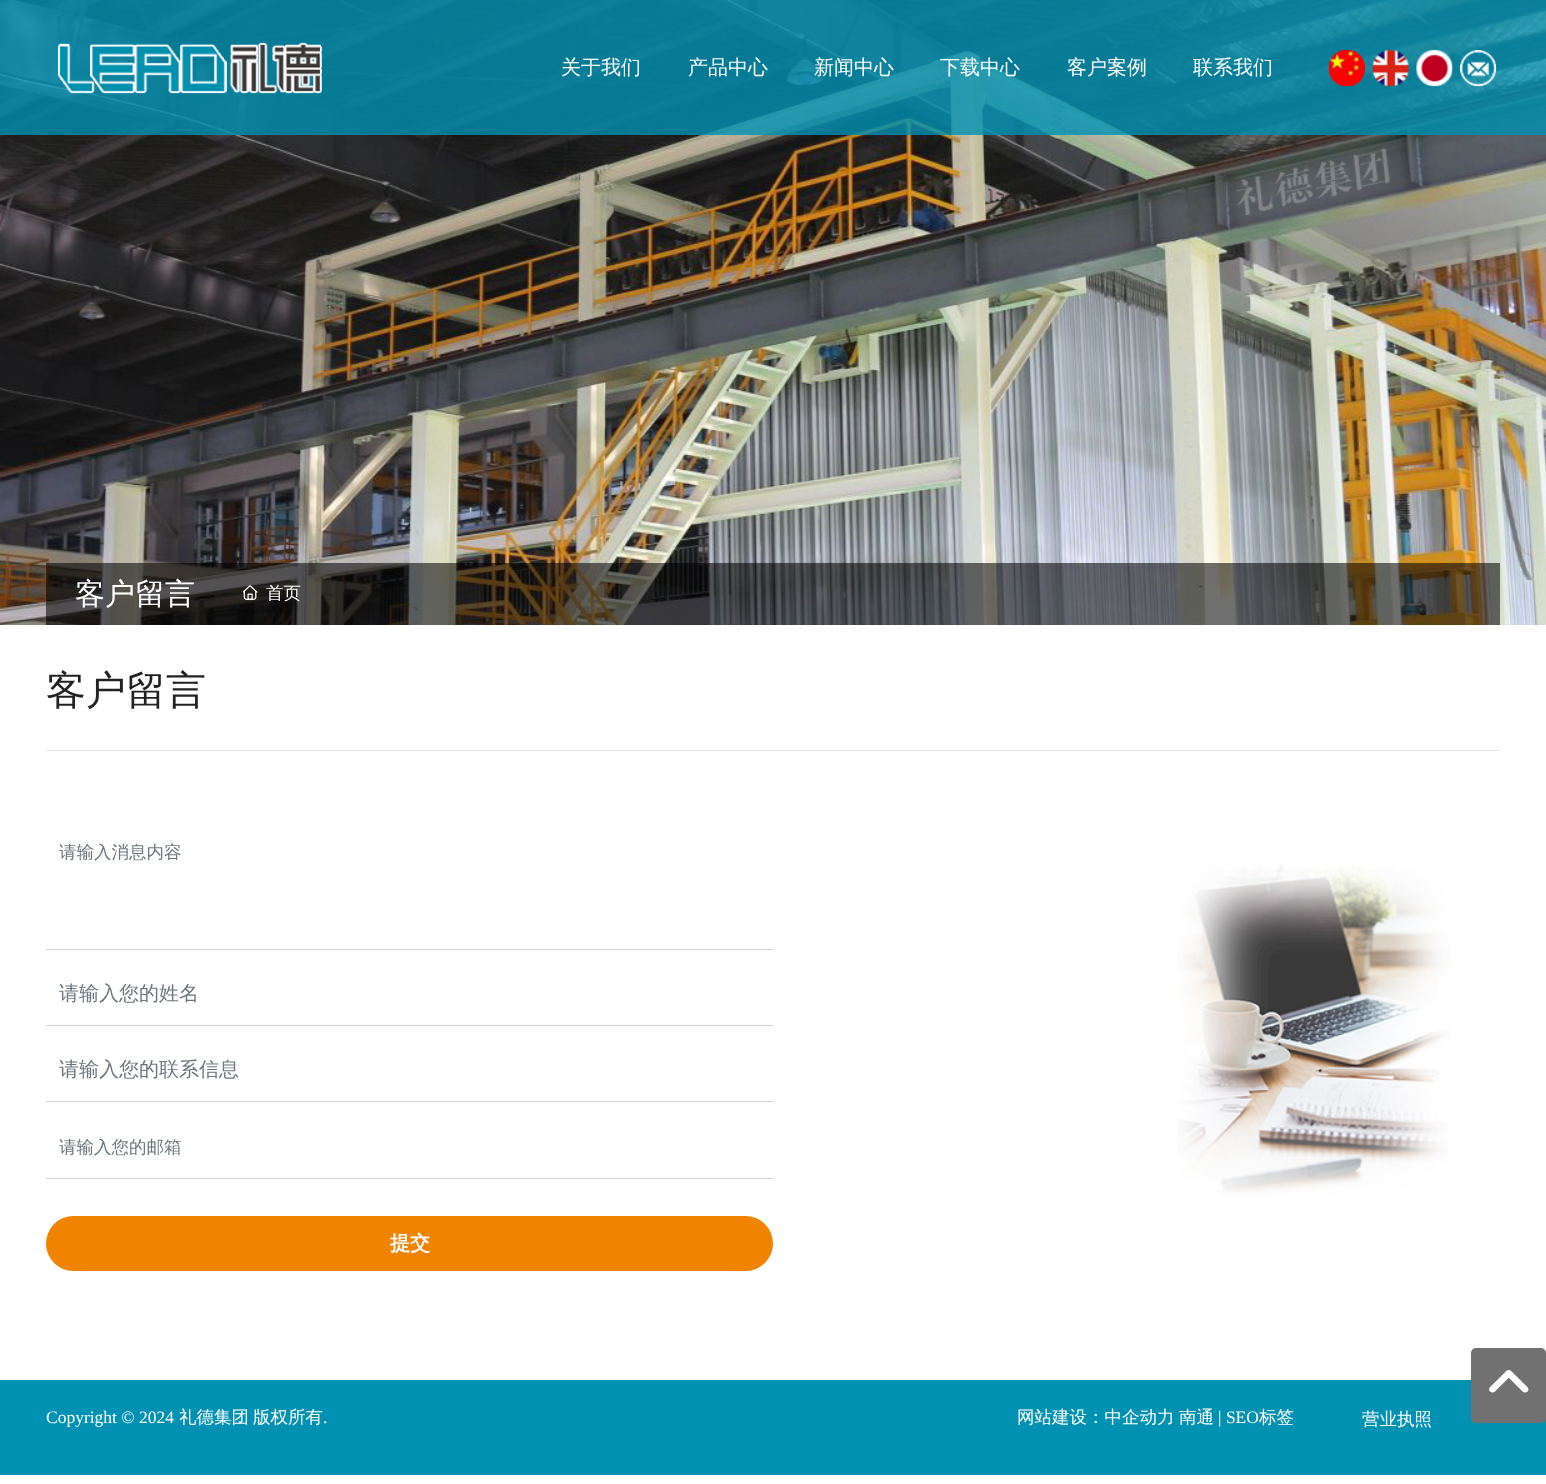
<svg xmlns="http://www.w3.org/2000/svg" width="1546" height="1484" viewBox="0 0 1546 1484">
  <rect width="100%" height="100%" fill="#fff"/>
  <image x="0" y="0" width="1546" height="625" href="img/1.png"/>
  <path d="M0 0h1546v135H0z" fill="#0091b3cc"/>
  <image x="57" y="42" width="265" height="52" href="img/2.png"/>
  <image x="1328" y="50" width="37" height="37" href="img/3.png"/>
  <image x="1372" y="50" width="37" height="37" href="img/4.png"/>
  <image x="1416" y="50" width="37" height="37" href="img/5.png"/>
  <image x="1460" y="50" width="37" height="37" href="img/6.png"/>
  <path d="M46 563h1454v62H46z" fill="#0000008f"/>
  <image x="243" y="585" width="15" height="15" href="img/7.png"/>
  <path d="M46 750h1454v1H46z" fill="#e6e6e6"/>
  <path d="M46 949h727v1H46z" fill="#ced4da"/>
  <path d="M46 1025h727v1H46z" fill="#ced4da"/>
  <path d="M46 1101h727v1H46z" fill="#ced4da"/>
  <path d="M46 1178h727v1H46z" fill="#ced4da"/>
  <rect x="46" y="1216" width="727" height="55" rx="27.5" fill="#f08300"/>
  <image x="1177" y="864" width="273" height="332" href="img/8.png"/>
  <path d="M0 1380h1546v95H0z" fill="#0091b3"/>
  <rect x="1471" y="1348" width="75" height="75" rx="5" fill="#717171"/>
  <image x="1489" y="1370" width="40" height="23" href="img/9.png"/>
  <g font-family="WenQuanYi Zen Hei" font-size="20" font-weight="500" fill="#fff">
    <text x="561" y="74">关于我们</text>
    <text x="688" y="74">产品中心</text>
    <text x="814" y="74">新闻中心</text>
    <text x="940" y="74">下载中心</text>
    <text x="1067" y="74">客户案例</text>
    <text x="1193" y="74">联系我们</text>
  </g>
  <text x="75" y="604" font-family="WenQuanYi Zen Hei" font-size="30" font-weight="500" fill="#fff">客户留言</text>
  <text x="266" y="599" font-family="WenQuanYi Zen Hei" font-size="17.5" font-weight="500" fill="#fff">首页</text>
  <text x="46" y="704" font-family="WenQuanYi Zen Hei" font-size="40" font-weight="500" fill="#222">客户留言</text>
  <text x="59" y="858" font-family="WenQuanYi Zen Hei" font-size="17.5" font-weight="500" fill="#6c757d">请输入消息内容</text>
  <g font-family="WenQuanYi Zen Hei" font-size="20" font-weight="500" fill="#6c757d">
    <text x="59" y="1000">请输入您的姓名</text>
    <text x="59" y="1076">请输入您的联系信息</text>
  </g>
  <text x="59" y="1153" font-family="WenQuanYi Zen Hei" font-size="17.5" font-weight="500" fill="#6c757d">请输入您的邮箱</text>
  <text x="390" y="1250" font-family="WenQuanYi Zen Hei" font-size="20" font-weight="bold" fill="#fff">提交</text>
  <text x="46" y="1423" font-family="Liberation Serif" font-size="17.5" fill="#fff">Copyright © 2024</text>
  <g font-family="WenQuanYi Zen Hei" font-size="17.5" font-weight="500" fill="#fff">
    <text x="179" y="1423">礼德集团</text>
    <text x="253" y="1423">版权所有</text>
  </g>
  <text x="323" y="1423" font-family="Liberation Serif" font-size="17.5" fill="#fff">.</text>
  <g font-family="WenQuanYi Zen Hei" font-size="17.5" font-weight="500" fill="#fff">
    <text x="1017" y="1423">网站建设：中企动力</text>
    <text x="1179" y="1423">南通</text>
  </g>
  <text x="1218" y="1423" font-family="Liberation Serif" font-size="17.5" fill="#fff">| SEO</text>
  <g font-family="WenQuanYi Zen Hei" font-size="17.5" font-weight="500" fill="#fff">
    <text x="1259" y="1423">标签</text>
    <text x="1362" y="1425">营业执照</text>
  </g>
</svg>
